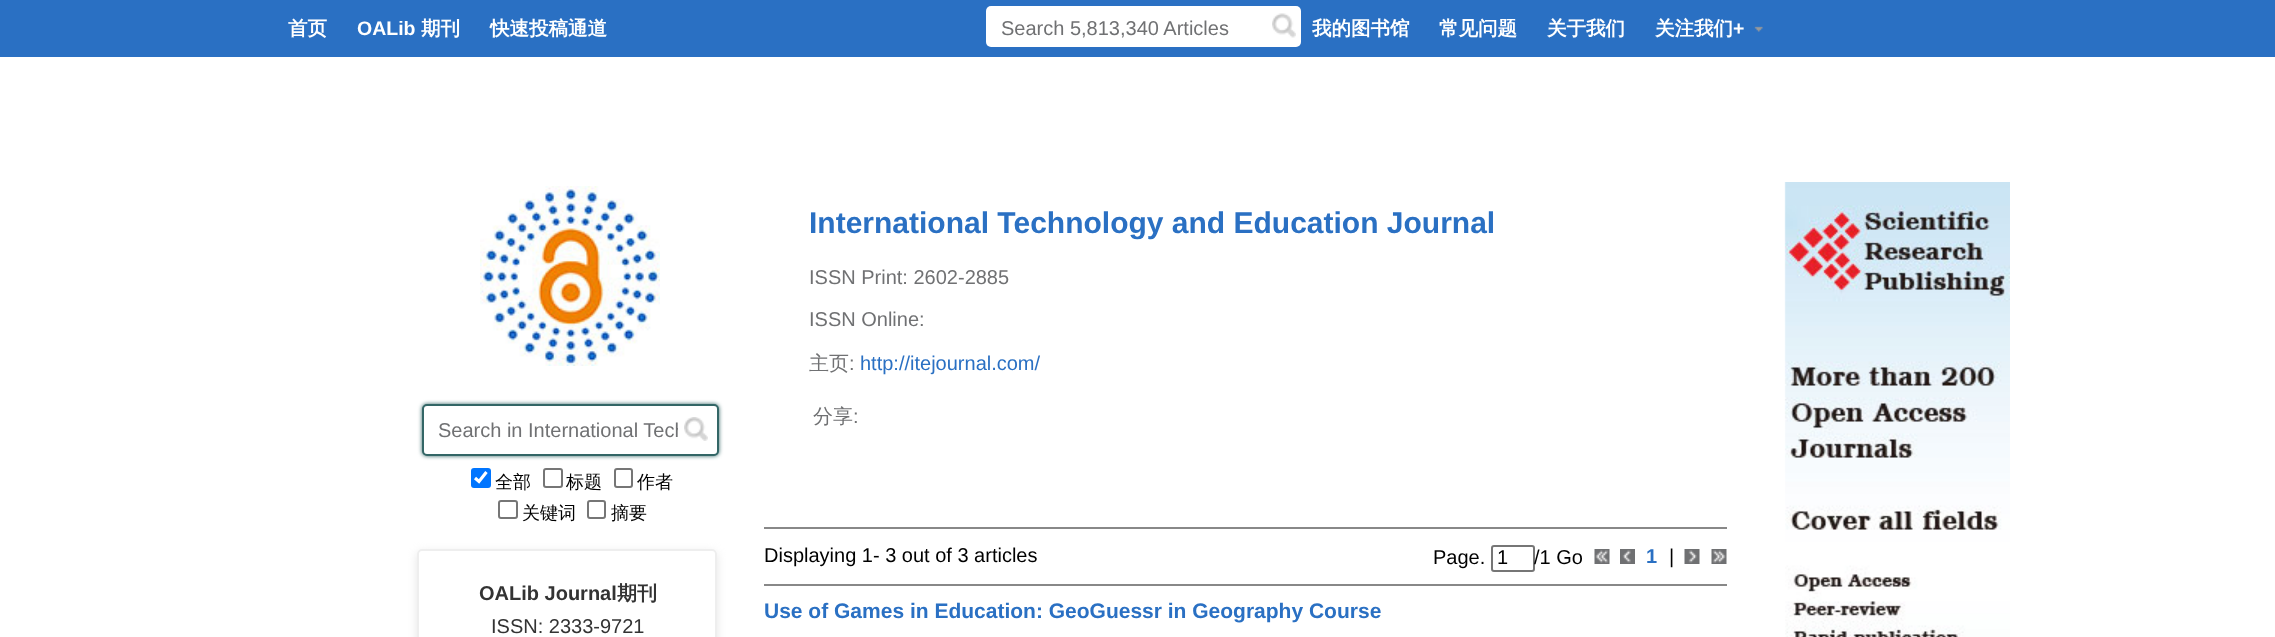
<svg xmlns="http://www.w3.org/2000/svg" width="2275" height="637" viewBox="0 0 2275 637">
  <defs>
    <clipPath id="clip1"><path d="M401 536H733V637H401ZM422 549H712C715 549 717 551 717 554V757C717 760 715 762 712 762H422C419 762 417 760 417 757V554C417 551 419 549 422 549Z" clip-rule="evenodd"/></clipPath>
    <clipPath id="clip2"><path d="M438 419h240v22H438z"/></clipPath>
  </defs>
  <rect width="100%" height="100%" fill="#fff"/>
  <path d="M0 0h2275v57H0z" fill="#2a70c3"/>
  <image x="1754" y="26" width="9" height="6" href="img/1.png"/>
  <rect x="986" y="6" width="315" height="41" rx="5" fill="#fff"/>
  <image x="1272" y="13" width="24" height="25" href="img/2.png"/>
  <image x="480" y="186" width="180" height="180" href="img/3.png"/>
  <rect x="422" y="404" width="297" height="52" rx="5" fill="#366" filter="blur(2px)"/>
  <rect x="423" y="405" width="295" height="50" rx="4" fill="#fff" stroke="#366" stroke-width="2"/>
  <image x="684" y="417" width="24" height="24" href="img/4.png"/>
  <rect x="471" y="468" width="20" height="20" rx="3" fill="#0075ff"/>
  <path d="M475 478L479 481.5L486.5 472" fill="none" stroke="#fff" stroke-width="3.1"/>
  <rect x="544" y="469" width="18" height="18" rx="2" fill="none" stroke="#767676" stroke-width="2"/>
  <rect x="615" y="469" width="17" height="18" rx="2" fill="none" stroke="#767676" stroke-width="2"/>
  <rect x="499" y="501" width="18" height="17" rx="2" fill="none" stroke="#767676" stroke-width="2"/>
  <rect x="588" y="501" width="17" height="17" rx="2" fill="none" stroke="#767676" stroke-width="2"/>
  <g clip-path="url(#clip1)">
    <rect x="417" y="552" width="300" height="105" rx="5" fill="#e5e5e5" filter="blur(5px)"/>
  </g>
  <rect x="418" y="550" width="298" height="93" rx="4" fill="none" stroke="#eee" stroke-width="2"/>
  <path d="M764 527h963v2H764z" fill="#888"/>
  <rect x="1492" y="546" width="42" height="25" rx="2" fill="none" stroke="#767676" stroke-width="2"/>
  <image x="1594" y="549" width="16" height="15" href="img/5.png"/>
  <image x="1620" y="549" width="15" height="15" href="img/6.png"/>
  <image x="1684" y="549" width="16" height="15" href="img/7.png"/>
  <image x="1711" y="549" width="16" height="15" href="img/8.png"/>
  <path d="M764 584h963v2H764z" fill="#888"/>
  <image x="1784" y="182" width="226" height="455" href="img/9.png"/>
  <text x="288" y="35" font-family="WenQuanYi Zen Hei" font-size="19.5" font-weight="bold" fill="#fff">首页</text>
  <text x="357" y="35" font-family="Liberation Sans" font-size="19.5" font-weight="bold" fill="#fff">OALib</text>
  <g font-family="WenQuanYi Zen Hei" font-size="19.5" font-weight="bold" fill="#fff">
    <text x="421" y="35">期刊</text>
    <text x="490" y="35">快速投稿通道</text>
    <text x="1312" y="35">我的图书馆</text>
    <text x="1439" y="35">常见问题</text>
    <text x="1547" y="35">关于我们</text>
    <text x="1655" y="35">关注我们</text>
  </g>
  <text x="1733" y="35" font-family="Liberation Sans" font-size="19.5" font-weight="bold" fill="#fff">+</text>
  <text x="1001" y="35" font-family="Liberation Sans" font-size="20" fill="#707173">Search 5,813,340 Articles</text>
  <g clip-path="url(#clip2)">
    <text x="438" y="437" font-family="Liberation Sans" font-size="20" fill="#707173">Search in International Tech</text>
  </g>
  <g font-family="WenQuanYi Zen Hei" font-size="18" font-weight="500" fill="#000">
    <text x="495" y="488">全部</text>
    <text x="566" y="488">标题</text>
    <text x="637" y="488">作者</text>
    <text x="522" y="519">关键词</text>
    <text x="611" y="519">摘要</text>
  </g>
  <text x="479" y="600" font-family="Liberation Sans" font-size="20" font-weight="bold" fill="#333">OALib Journal</text>
  <text x="617" y="600" font-family="WenQuanYi Zen Hei" font-size="20" font-weight="bold" fill="#333">期刊</text>
  <text x="491" y="633" font-family="Liberation Sans" font-size="20" fill="#333">ISSN: 2333-9721</text>
  <text x="809" y="233" font-family="Liberation Sans" font-size="30" font-weight="bold" fill="#2a70c3">International Technology and Education Journal</text>
  <g font-family="Liberation Sans" font-size="20" fill="#707173">
    <text x="809" y="284">ISSN Print: 2602-2885</text>
    <text x="809" y="326">ISSN Online:</text>
  </g>
  <text x="809" y="370" font-family="WenQuanYi Zen Hei" font-size="20" font-weight="500" fill="#707173">主页</text>
  <text x="849" y="370" font-family="Liberation Sans" font-size="20" fill="#707173">:</text>
  <text x="860" y="370" font-family="Liberation Sans" font-size="20" fill="#2a70c3">http://itejournal.com/</text>
  <text x="813" y="423" font-family="WenQuanYi Zen Hei" font-size="20" font-weight="500" fill="#707173">分享</text>
  <text x="853" y="423" font-family="Liberation Sans" font-size="20" fill="#707173">:</text>
  <g font-family="Liberation Sans" font-size="20" fill="#000">
    <text x="764" y="562">Displaying 1- 3 out of 3 articles</text>
    <text x="1433" y="564">Page.</text>
    <text x="1497" y="564">1</text>
    <text x="1534" y="564">/1 Go</text>
  </g>
  <text x="1646" y="563" font-family="Liberation Sans" font-size="20" font-weight="bold" fill="#2a70c3">1</text>
  <text x="1669" y="563" font-family="Liberation Sans" font-size="20" fill="#000">|</text>
  <text x="764" y="618" font-family="Liberation Sans" font-size="21" font-weight="bold" fill="#2a70c3">Use of Games in Education: GeoGuessr in Geography Course</text>
</svg>
